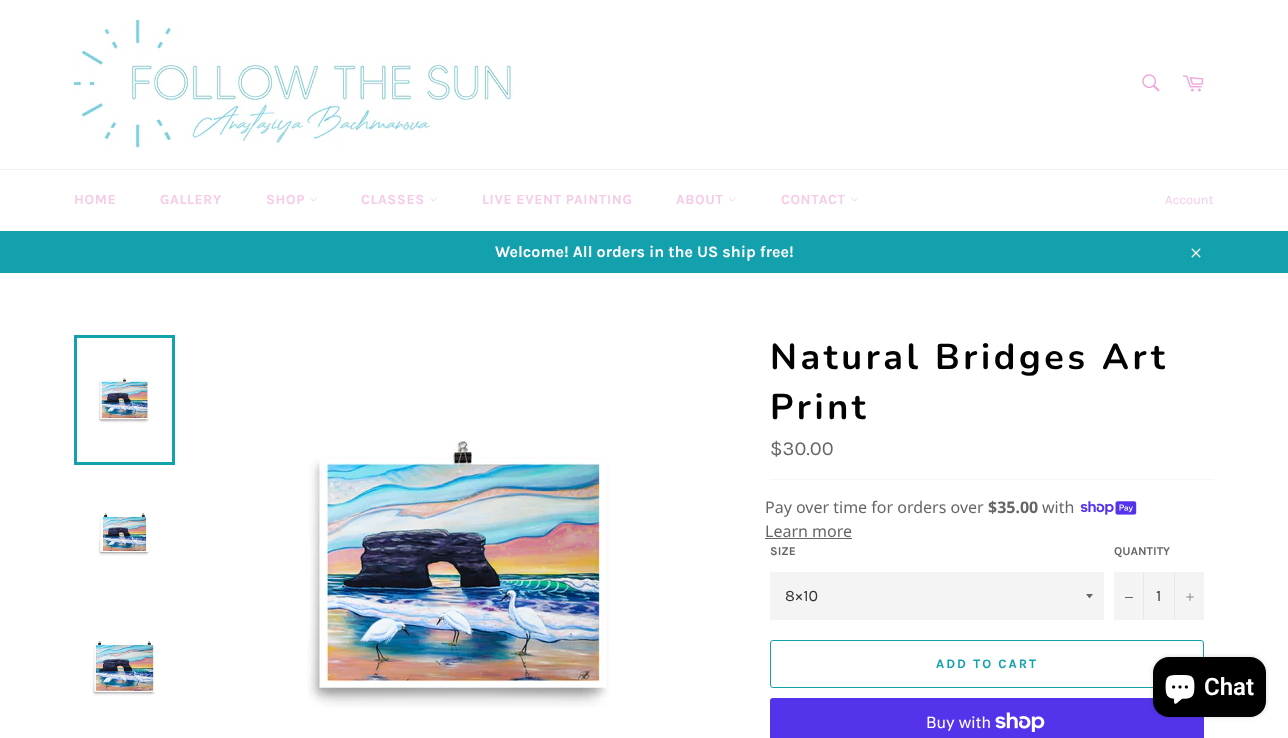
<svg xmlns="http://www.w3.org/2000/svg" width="1288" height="738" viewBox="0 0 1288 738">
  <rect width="100%" height="100%" fill="#fff"/>
  <image x="74" y="20" width="440" height="129" href="img/1.png"/>
  <image x="1142" y="74" width="18" height="18" href="img/2.png"/>
  <image x="1182" y="75" width="22" height="17" href="img/3.png"/>
  <path d="M0 169h1288v1H0z" fill="#f2f2f2"/>
  <image x="310" y="197" width="7" height="5" href="img/4.png"/>
  <image x="430" y="197" width="7" height="5" href="img/4.png"/>
  <image x="729" y="197" width="7" height="5" href="img/4.png"/>
  <image x="851" y="197" width="7" height="5" href="img/4.png"/>
  <path d="M0 231h1288v42H0z" fill="#13a1ad"/>
  <image x="1191" y="248" width="10" height="10" href="img/5.png"/>
  <image x="98" y="378" width="51" height="45" href="img/6.png"/>
  <path d="M75.5 336.5h98v127H75.5z" fill="none" stroke="#13a1ad" stroke-width="3"/>
  <image x="98" y="513" width="52" height="43" href="img/7.png"/>
  <image x="92" y="641" width="64" height="55" href="img/8.png"/>
  <image x="307" y="441" width="303" height="267" href="img/9.png"/>
  <path d="M770 479h444v1H770z" fill="#f7f7f7"/>
  <image x="1080" y="501" width="57" height="14" href="img/10.png"/>
  <path d="M765 538h87v1H765z" fill="#666"/>
  <path d="M770 572h334v48H770z" fill="#f4f4f4"/>
  <path d="M1086 594C1090.5 599.5 1088.5 599.5 1093 594Z" fill="#666"/>
  <path d="M1114 572h90v48H1114z" fill="#f4f4f4"/>
  <path d="M1143 572h1v48H1143z" fill="#e7e7e7"/>
  <path d="M1125 597h8v1H1125z" fill="#666"/>
  <path d="M1174 572h1v48H1174z" fill="#e7e7e7"/>
  <image x="1186" y="593" width="8" height="8" href="img/11.png"/>
  <rect x="770.5" y="640.5" width="433" height="47" rx="2.5" fill="none" stroke="#13a1ad"/>
  <rect x="770" y="698" width="434" height="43" rx="3" fill="#5433eb"/>
  <image x="995" y="712" width="50" height="20" href="img/12.png"/>
  <rect x="1153" y="657" width="113" height="60" rx="16" fill="#00000026" filter="blur(2.5px)"/>
  <rect x="1153" y="657" width="113" height="60" rx="16" fill="#000"/>
  <image x="1165" y="675" width="30" height="29" href="img/13.png"/>
  <g font-family="Karla" font-size="14" font-weight="bold" letter-spacing="0.6" fill="#f6cbe8">
    <text x="74" y="204">HOME</text>
    <text x="160" y="204">GALLERY</text>
    <text x="266" y="204">SHOP</text>
    <text x="361" y="204">CLASSES</text>
    <text x="482" y="204">LIVE EVENT PAINTING</text>
    <text x="676" y="204">ABOUT</text>
    <text x="781" y="204">CONTACT</text>
  </g>
  <text x="1165" y="204" font-family="Karla" font-size="13" fill="#f6cbe8">Account</text>
  <text x="495" y="257" font-family="Karla" font-size="16" font-weight="bold" fill="#fff">Welcome! All orders in the US ship free!</text>
  <g font-family="Nunito" font-size="36" font-weight="bold" letter-spacing="3.6" fill="#030303">
    <text x="770" y="369">Natural Bridges Art</text>
    <text x="770" y="419">Print</text>
  </g>
  <text x="770" y="455" font-family="Karla" font-size="20" fill="#666">$30.00</text>
  <text x="765" y="513" font-family="Noto Sans" font-size="16" fill="#666">Pay over time for orders over</text>
  <text x="988" y="513" font-family="Noto Sans" font-size="16" font-weight="bold" fill="#666">$35.00</text>
  <g font-family="Noto Sans" font-size="16" fill="#666">
    <text x="1042" y="513">with</text>
    <text x="765" y="537">Learn more</text>
  </g>
  <text x="770" y="555" font-family="Karla" font-size="12" font-weight="bold" fill="#666">SIZE</text>
  <text x="785" y="601" font-family="Karla" font-size="16" fill="#333">8×10</text>
  <text x="1114" y="555" font-family="Karla" font-size="12" font-weight="bold" fill="#666">QUANTITY</text>
  <text x="1156" y="601" font-family="Karla" font-size="16" fill="#333">1</text>
  <text x="936" y="668" font-family="Karla" font-size="13" font-weight="bold" letter-spacing="2" fill="#13a1ad">ADD TO CART</text>
  <text x="926" y="728" font-family="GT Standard" font-size="16" fill="#fff">Buy with</text>
  <text x="1204" y="695" font-family="Roboto" font-size="24" font-weight="600" fill="#fff">Chat</text>
</svg>
